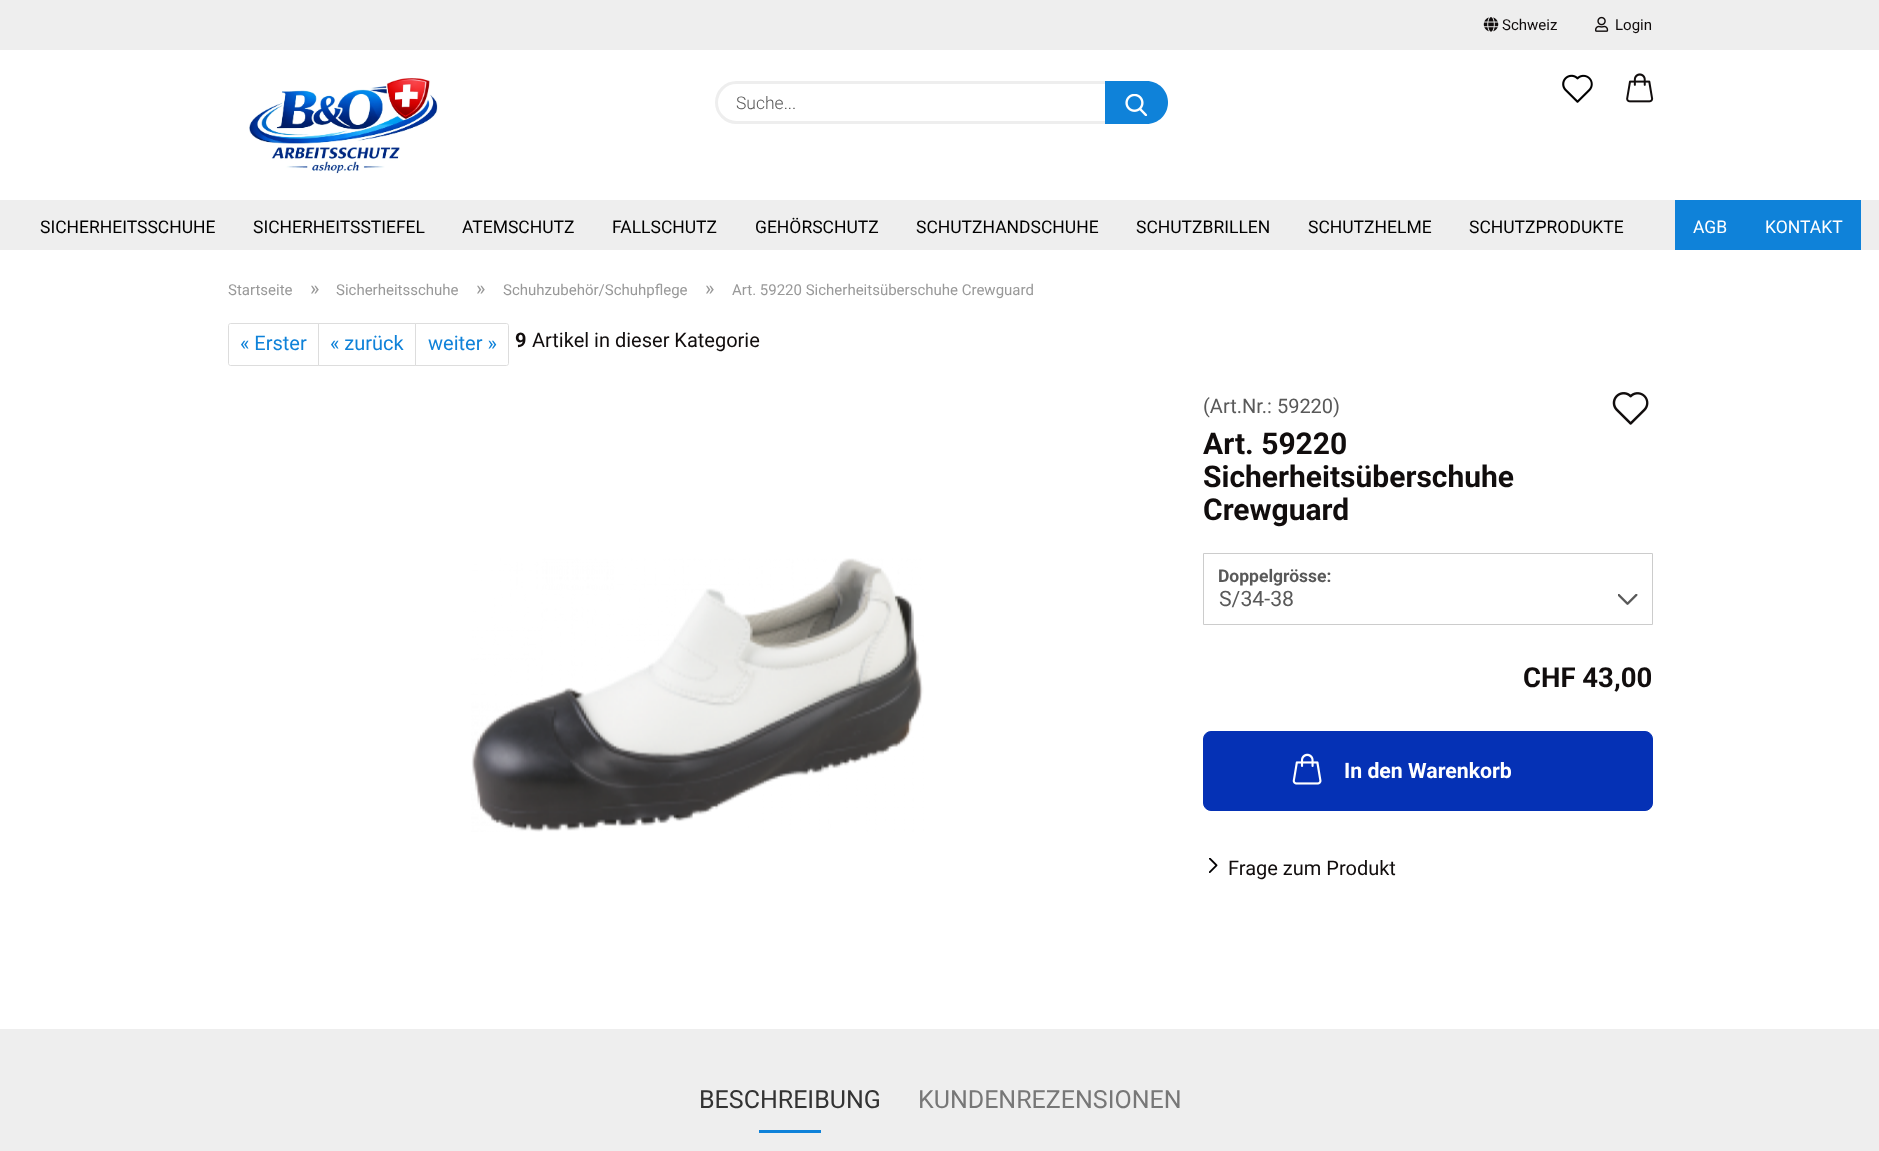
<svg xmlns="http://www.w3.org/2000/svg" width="1879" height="1151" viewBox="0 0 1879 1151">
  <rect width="100%" height="100%" fill="#fff"/>
  <path d="M0 0h1879v50H0z" fill="#eee"/>
  <image x="1483" y="17" width="16" height="15" href="img/1.png"/>
  <image x="1595" y="16" width="14" height="16" href="img/2.png"/>
  <image x="249" y="78" width="189" height="96" href="img/3.png"/>
  <rect x="716.5" y="82.5" width="447" height="40" rx="20" fill="none" stroke="#eee" stroke-width="3"/>
  <path d="M1105 81H1146.5C1158.5 81 1168 90.5 1168 102.5C1168 114.5 1158.5 124 1146.5 124H1105Z" fill="#0f82d9"/>
  <image x="1125" y="94" width="23" height="22" href="img/4.png"/>
  <image x="1562" y="74" width="31" height="29" href="img/5.png"/>
  <image x="1626" y="73" width="28" height="30" href="img/6.png"/>
  <path d="M0 200h1879v50H0z" fill="#eee"/>
  <path d="M1675 200h186v50H1675z" fill="#0f82d9"/>
  <path d="M230.5 323.5H318.5V365.5H230.5C229.5 365.5 228.5 364.5 228.5 363.5V325.5C228.5 324.5 229.5 323.5 230.5 323.5Z" fill="none" stroke="#ddd"/>
  <path d="M318.5 323.5h97v42H318.5z" fill="none" stroke="#ddd"/>
  <path d="M415.5 323.5H506.5C507.5 323.5 508.5 324.5 508.5 325.5V363.5C508.5 364.5 507.5 365.5 506.5 365.5H415.5Z" fill="#fff" stroke="#ddd"/>
  <image x="471" y="558" width="453" height="274" href="img/7.png"/>
  <image x="1612" y="392" width="37" height="33" href="img/8.png"/>
  <path d="M1203.5 553.5h449v71H1203.5z" fill="none" stroke="#ccc"/>
  <image x="1618" y="594" width="20" height="11" href="img/9.png"/>
  <rect x="1203.5" y="731.5" width="449" height="79" rx="7.5" fill="#0531b5" stroke="#0531b5"/>
  <image x="1292" y="753" width="30" height="32" href="img/10.png"/>
  <image x="1209" y="858" width="9" height="15" href="img/11.png"/>
  <path d="M0 1029h1879v122H0z" fill="#eee"/>
  <path d="M759 1130h62v3H759z" fill="#0f82d9"/>
  <g font-family="Roboto" font-size="15" fill="#110d0d">
    <text x="1502" y="30">Schweiz</text>
    <text x="1615" y="30">Login</text>
  </g>
  <text x="736" y="109" font-family="Roboto" font-size="17.5" font-weight="300" fill="#595959">Suche...</text>
  <g font-family="Roboto" font-size="17.5" fill="#000">
    <text x="40" y="233">SICHERHEITSSCHUHE</text>
    <text x="253" y="233">SICHERHEITSSTIEFEL</text>
    <text x="462" y="233">ATEMSCHUTZ</text>
    <text x="612" y="233">FALLSCHUTZ</text>
    <text x="755" y="233">GEHÖRSCHUTZ</text>
    <text x="916" y="233">SCHUTZHANDSCHUHE</text>
    <text x="1136" y="233">SCHUTZBRILLEN</text>
    <text x="1308" y="233">SCHUTZHELME</text>
    <text x="1469" y="233">SCHUTZPRODUKTE</text>
  </g>
  <g font-family="Roboto" font-size="17.5" fill="#fff">
    <text x="1693" y="233">AGB</text>
    <text x="1765" y="233">KONTAKT</text>
  </g>
  <text x="228" y="295" font-family="Roboto" font-size="15" fill="#999">Startseite</text>
  <text x="310" y="295" font-family="Roboto" font-size="20" fill="#999">»</text>
  <text x="336" y="295" font-family="Roboto" font-size="15" fill="#999">Sicherheitsschuhe</text>
  <text x="476" y="295" font-family="Roboto" font-size="20" fill="#999">»</text>
  <text x="503" y="295" font-family="Roboto" font-size="15" fill="#999">Schuhzubehör/Schuhpflege</text>
  <text x="705" y="295" font-family="Roboto" font-size="20" fill="#999">»</text>
  <text x="732" y="295" font-family="Roboto" font-size="15" fill="#999">Art. 59220 Sicherheitsüberschuhe Crewguard</text>
  <g font-family="Roboto" font-size="20" fill="#0f82d9">
    <text x="240" y="350">« Erster</text>
    <text x="330" y="350">« zurück</text>
    <text x="428" y="350">weiter »</text>
  </g>
  <text x="515" y="347" font-family="Roboto" font-size="20" font-weight="bold" fill="#110d0d">9</text>
  <text x="532" y="347" font-family="Roboto" font-size="20" fill="#110d0d">Artikel in dieser Kategorie</text>
  <text x="1203" y="413" font-family="Roboto" font-size="20" fill="#595959">(Art.Nr.: 59220)</text>
  <g font-family="Roboto" font-size="30" font-weight="bold" fill="#110d0d">
    <text x="1203" y="454">Art. 59220</text>
    <text x="1203" y="487">Sicherheitsüberschuhe</text>
    <text x="1203" y="520">Crewguard</text>
  </g>
  <text x="1218" y="582" font-family="Roboto" font-size="17.5" font-weight="bold" fill="#595959">Doppelgrösse:</text>
  <text x="1219" y="606" font-family="Roboto" font-size="21.25" fill="#595959">S/34-38</text>
  <text x="1523" y="687" font-family="Roboto" font-size="27.5" font-weight="bold" fill="#110d0d">CHF 43,00</text>
  <text x="1344" y="778" font-family="Roboto" font-size="21.25" font-weight="bold" fill="#fff">In den Warenkorb</text>
  <text x="1228" y="875" font-family="Roboto" font-size="20" fill="#110d0d">Frage zum Produkt</text>
  <text x="699" y="1108" font-family="Roboto" font-size="25" fill="#333">BESCHREIBUNG</text>
  <text x="918" y="1108" font-family="Roboto" font-size="25" fill="#777">KUNDENREZENSIONEN</text>
</svg>
